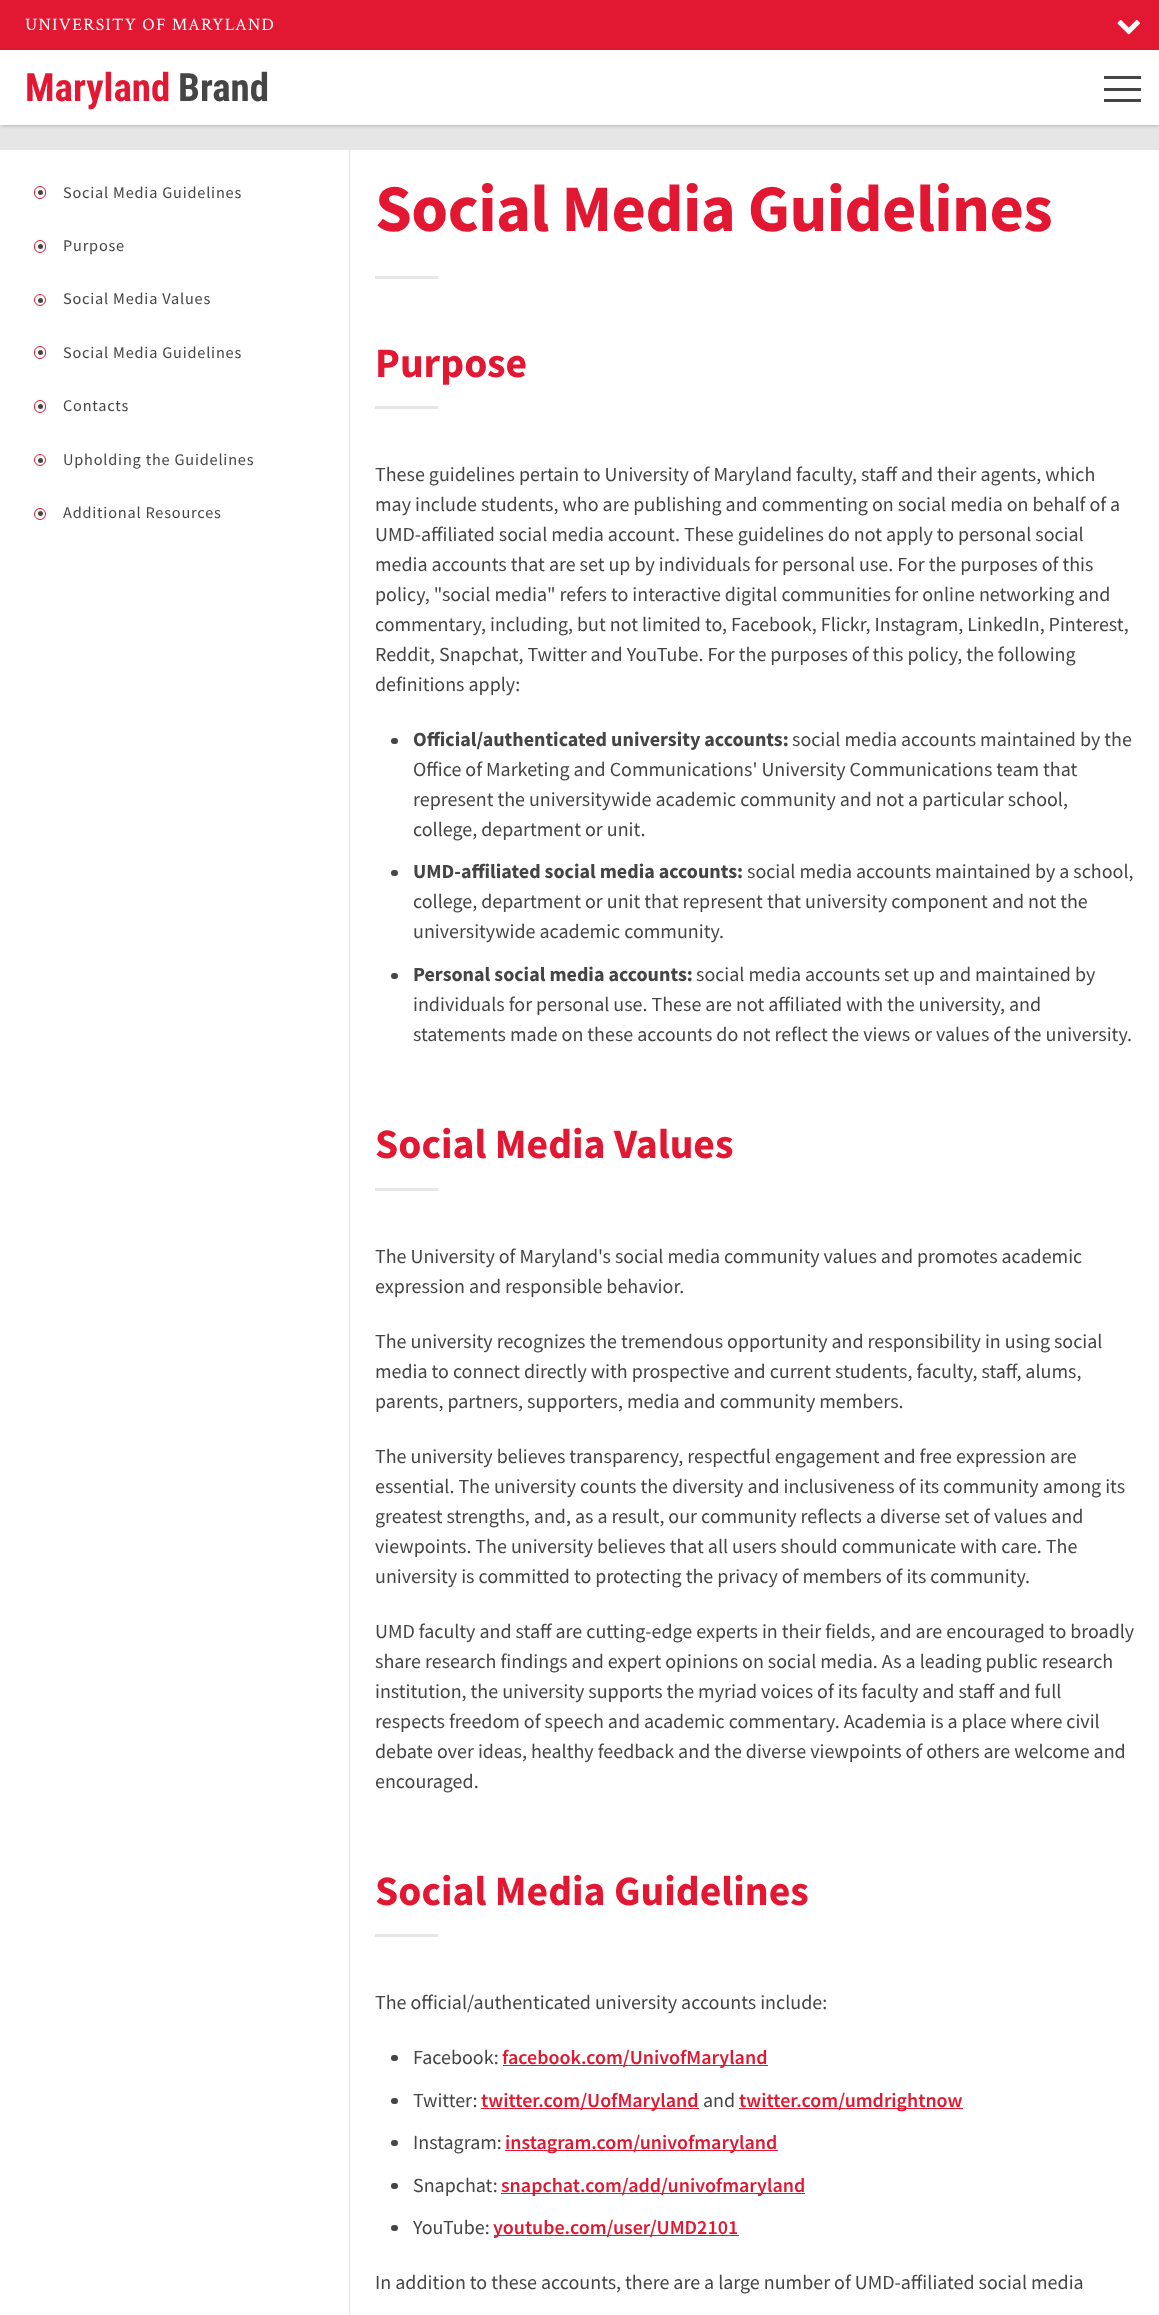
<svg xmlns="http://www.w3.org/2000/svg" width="1159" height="2315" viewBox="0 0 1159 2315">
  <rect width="100%" height="100%" fill="#e6e6e6"/>
  <path d="M1 51h1158v73H1z" fill="#00000080" filter="blur(2.5px)"/>
  <path d="M0 0h1159v50H0z" fill="#e21833"/>
  <image x="1117" y="20" width="23" height="15" href="img/1.png"/>
  <path d="M0 50h1159v75H0z" fill="#fff"/>
  <path d="M1104 76h37v3H1104z" fill="#454545"/>
  <path d="M1104 88h37v3H1104z" fill="#454545"/>
  <path d="M1104 99h37v3H1104z" fill="#454545"/>
  <path d="M0 150h1159v2165H0z" fill="#fff"/>
  <path d="M349 150h1v2165H349z" fill="#e6e6e6"/>
  <rect x="34.5" y="186.5" width="11" height="12" rx="5.5" fill="none" stroke="#e21833"/>
  <circle cx="40.5" cy="192.5" r="2.5" fill="#454545"/>
  <rect x="34.5" y="240.5" width="11" height="12" rx="5.5" fill="none" stroke="#e21833"/>
  <circle cx="40.5" cy="246.5" r="2.5" fill="#454545"/>
  <circle cx="40" cy="300" r="5.5" fill="none" stroke="#e21833"/>
  <circle cx="40.5" cy="300.5" r="2.5" fill="#454545"/>
  <rect x="34.5" y="346.5" width="11" height="12" rx="5.5" fill="none" stroke="#e21833"/>
  <circle cx="40.5" cy="352.5" r="2.5" fill="#454545"/>
  <rect x="34.5" y="400.5" width="11" height="12" rx="5.5" fill="none" stroke="#e21833"/>
  <circle cx="40.5" cy="406.5" r="2.5" fill="#454545"/>
  <circle cx="40" cy="460" r="5.5" fill="none" stroke="#e21833"/>
  <circle cx="40.5" cy="460.5" r="2.5" fill="#454545"/>
  <circle cx="40" cy="514" r="5.5" fill="none" stroke="#e21833"/>
  <circle cx="40.5" cy="513.5" r="2.5" fill="#454545"/>
  <path d="M375 276h63v3H375z" fill="#e6e6e6"/>
  <path d="M375 406h63v3H375z" fill="#e6e6e6"/>
  <rect x="391" y="738" width="7" height="6" rx="3" fill="#454545"/>
  <rect x="391" y="870" width="7" height="6" rx="3" fill="#454545"/>
  <rect x="391" y="973" width="7" height="6" rx="3" fill="#454545"/>
  <path d="M375 1188h63v3H375z" fill="#e6e6e6"/>
  <path d="M375 1934h63v3H375z" fill="#e6e6e6"/>
  <rect x="391" y="2055" width="7" height="6" rx="3" fill="#454545"/>
  <path d="M503 2065h265v1H503z" fill="#e21833"/>
  <rect x="391" y="2098" width="7" height="6" rx="3" fill="#454545"/>
  <path d="M481 2108h218v1H481z" fill="#e21833"/>
  <path d="M739 2108h224v1H739z" fill="#e21833"/>
  <rect x="391" y="2140" width="7" height="6" rx="3" fill="#454545"/>
  <path d="M505 2150h273v1H505z" fill="#e21833"/>
  <rect x="391" y="2183" width="7" height="6" rx="3" fill="#454545"/>
  <path d="M501 2193h304v1H501z" fill="#e21833"/>
  <rect x="391" y="2225" width="7" height="6" rx="3" fill="#454545"/>
  <path d="M494 2235h245v1H494z" fill="#e21833"/>
  <text x="25" y="30" font-family="Crimson Text" font-size="17.5" letter-spacing="1.25" fill="#fff">UNIVERSITY OF MARYLAND</text>
  <text x="25" y="101" font-family="Roboto Condensed" font-size="39" font-weight="bold" fill="#e21833">Maryland</text>
  <text x="178" y="101" font-family="Roboto Condensed" font-size="39" font-weight="bold" fill="#454545">Brand</text>
  <g font-family="Source Sans Pro" font-size="16.25" letter-spacing="0.8" fill="#454545">
    <text x="63" y="198">Social Media Guidelines</text>
    <text x="63" y="251">Purpose</text>
    <text x="63" y="304">Social Media Values</text>
    <text x="63" y="358">Social Media Guidelines</text>
    <text x="63" y="411">Contacts</text>
    <text x="63" y="465">Upholding the Guidelines</text>
    <text x="63" y="518">Additional Resources</text>
  </g>
  <text x="375" y="231" font-family="Source Sans Pro" font-size="66.5" font-weight="bold" letter-spacing="-0.6" fill="#e21833">Social Media Guidelines</text>
  <text x="375" y="377" font-family="Source Sans Pro" font-size="41.75" font-weight="bold" fill="#e21833">Purpose</text>
  <g font-family="Source Sans Pro" font-size="20" fill="#454545">
    <text x="375" y="481">These guidelines pertain to University of Maryland faculty, staff and their agents, which</text>
    <text x="375" y="511">may include students, who are publishing and commenting on social media on behalf of a</text>
    <text x="375" y="541">UMD-affiliated social media account. These guidelines do not apply to personal social</text>
    <text x="375" y="571">media accounts that are set up by individuals for personal use. For the purposes of this</text>
    <text x="375" y="601">policy, "social media" refers to interactive digital communities for online networking and</text>
    <text x="375" y="631">commentary, including, but not limited to, Facebook, Flickr, Instagram, LinkedIn, Pinterest,</text>
    <text x="375" y="661">Reddit, Snapchat, Twitter and YouTube. For the purposes of this policy, the following</text>
    <text x="375" y="691">definitions apply:</text>
  </g>
  <text x="413" y="746" font-family="Source Sans Pro" font-size="20" font-weight="bold" fill="#454545">Official/authenticated university accounts:</text>
  <g font-family="Source Sans Pro" font-size="20" fill="#454545">
    <text x="792" y="746">social media accounts maintained by the</text>
    <text x="413" y="776">Office of Marketing and Communications' University Communications team that</text>
    <text x="413" y="806">represent the universitywide academic community and not a particular school,</text>
    <text x="413" y="836">college, department or unit.</text>
  </g>
  <text x="413" y="878" font-family="Source Sans Pro" font-size="20" font-weight="bold" fill="#454545">UMD-affiliated social media accounts:</text>
  <g font-family="Source Sans Pro" font-size="20" fill="#454545">
    <text x="747" y="878">social media accounts maintained by a school,</text>
    <text x="413" y="908">college, department or unit that represent that university component and not the</text>
    <text x="413" y="938">universitywide academic community.</text>
  </g>
  <text x="413" y="981" font-family="Source Sans Pro" font-size="20" font-weight="bold" fill="#454545">Personal social media accounts:</text>
  <g font-family="Source Sans Pro" font-size="20" fill="#454545">
    <text x="696" y="981">social media accounts set up and maintained by</text>
    <text x="413" y="1011">individuals for personal use. These are not affiliated with the university, and</text>
    <text x="413" y="1041">statements made on these accounts do not reflect the views or values of the university.</text>
  </g>
  <text x="375" y="1158" font-family="Source Sans Pro" font-size="41.75" font-weight="bold" fill="#e21833">Social Media Values</text>
  <g font-family="Source Sans Pro" font-size="20" fill="#454545">
    <text x="375" y="1263">The University of Maryland's social media community values and promotes academic</text>
    <text x="375" y="1293">expression and responsible behavior.</text>
    <text x="375" y="1348">The university recognizes the tremendous opportunity and responsibility in using social</text>
    <text x="375" y="1378">media to connect directly with prospective and current students, faculty, staff, alums,</text>
    <text x="375" y="1408">parents, partners, supporters, media and community members.</text>
    <text x="375" y="1463">The university believes transparency, respectful engagement and free expression are</text>
    <text x="375" y="1493">essential. The university counts the diversity and inclusiveness of its community among its</text>
    <text x="375" y="1523">greatest strengths, and, as a result, our community reflects a diverse set of values and</text>
    <text x="375" y="1553">viewpoints. The university believes that all users should communicate with care. The</text>
    <text x="375" y="1583">university is committed to protecting the privacy of members of its community.</text>
    <text x="375" y="1638">UMD faculty and staff are cutting-edge experts in their fields, and are encouraged to broadly</text>
    <text x="375" y="1668">share research findings and expert opinions on social media. As a leading public research</text>
    <text x="375" y="1698">institution, the university supports the myriad voices of its faculty and staff and full</text>
    <text x="375" y="1728">respects freedom of speech and academic commentary. Academia is a place where civil</text>
    <text x="375" y="1758">debate over ideas, healthy feedback and the diverse viewpoints of others are welcome and</text>
    <text x="375" y="1788">encouraged.</text>
  </g>
  <text x="375" y="1905" font-family="Source Sans Pro" font-size="41.75" font-weight="bold" fill="#e21833">Social Media Guidelines</text>
  <g font-family="Source Sans Pro" font-size="20" fill="#454545">
    <text x="375" y="2009">The official/authenticated university accounts include:</text>
    <text x="413" y="2064">Facebook:</text>
  </g>
  <text x="502" y="2064" font-family="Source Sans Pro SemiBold" font-size="20" font-weight="600" fill="#e21833">facebook.com/UnivofMaryland</text>
  <text x="413" y="2107" font-family="Source Sans Pro" font-size="20" fill="#454545">Twitter:</text>
  <text x="481" y="2107" font-family="Source Sans Pro SemiBold" font-size="20" font-weight="600" fill="#e21833">twitter.com/UofMaryland</text>
  <text x="703" y="2107" font-family="Source Sans Pro" font-size="20" fill="#454545">and</text>
  <text x="739" y="2107" font-family="Source Sans Pro SemiBold" font-size="20" font-weight="600" fill="#e21833">twitter.com/umdrightnow</text>
  <text x="413" y="2149" font-family="Source Sans Pro" font-size="20" fill="#454545">Instagram:</text>
  <text x="505" y="2149" font-family="Source Sans Pro SemiBold" font-size="20" font-weight="600" fill="#e21833">instagram.com/univofmaryland</text>
  <text x="413" y="2192" font-family="Source Sans Pro" font-size="20" fill="#454545">Snapchat:</text>
  <text x="501" y="2192" font-family="Source Sans Pro SemiBold" font-size="20" font-weight="600" fill="#e21833">snapchat.com/add/univofmaryland</text>
  <text x="413" y="2234" font-family="Source Sans Pro" font-size="20" fill="#454545">YouTube:</text>
  <text x="493" y="2234" font-family="Source Sans Pro SemiBold" font-size="20" font-weight="600" fill="#e21833">youtube.com/user/UMD2101</text>
  <text x="375" y="2289" font-family="Source Sans Pro" font-size="20" fill="#454545">In addition to these accounts, there are a large number of UMD-affiliated social media</text>
</svg>
